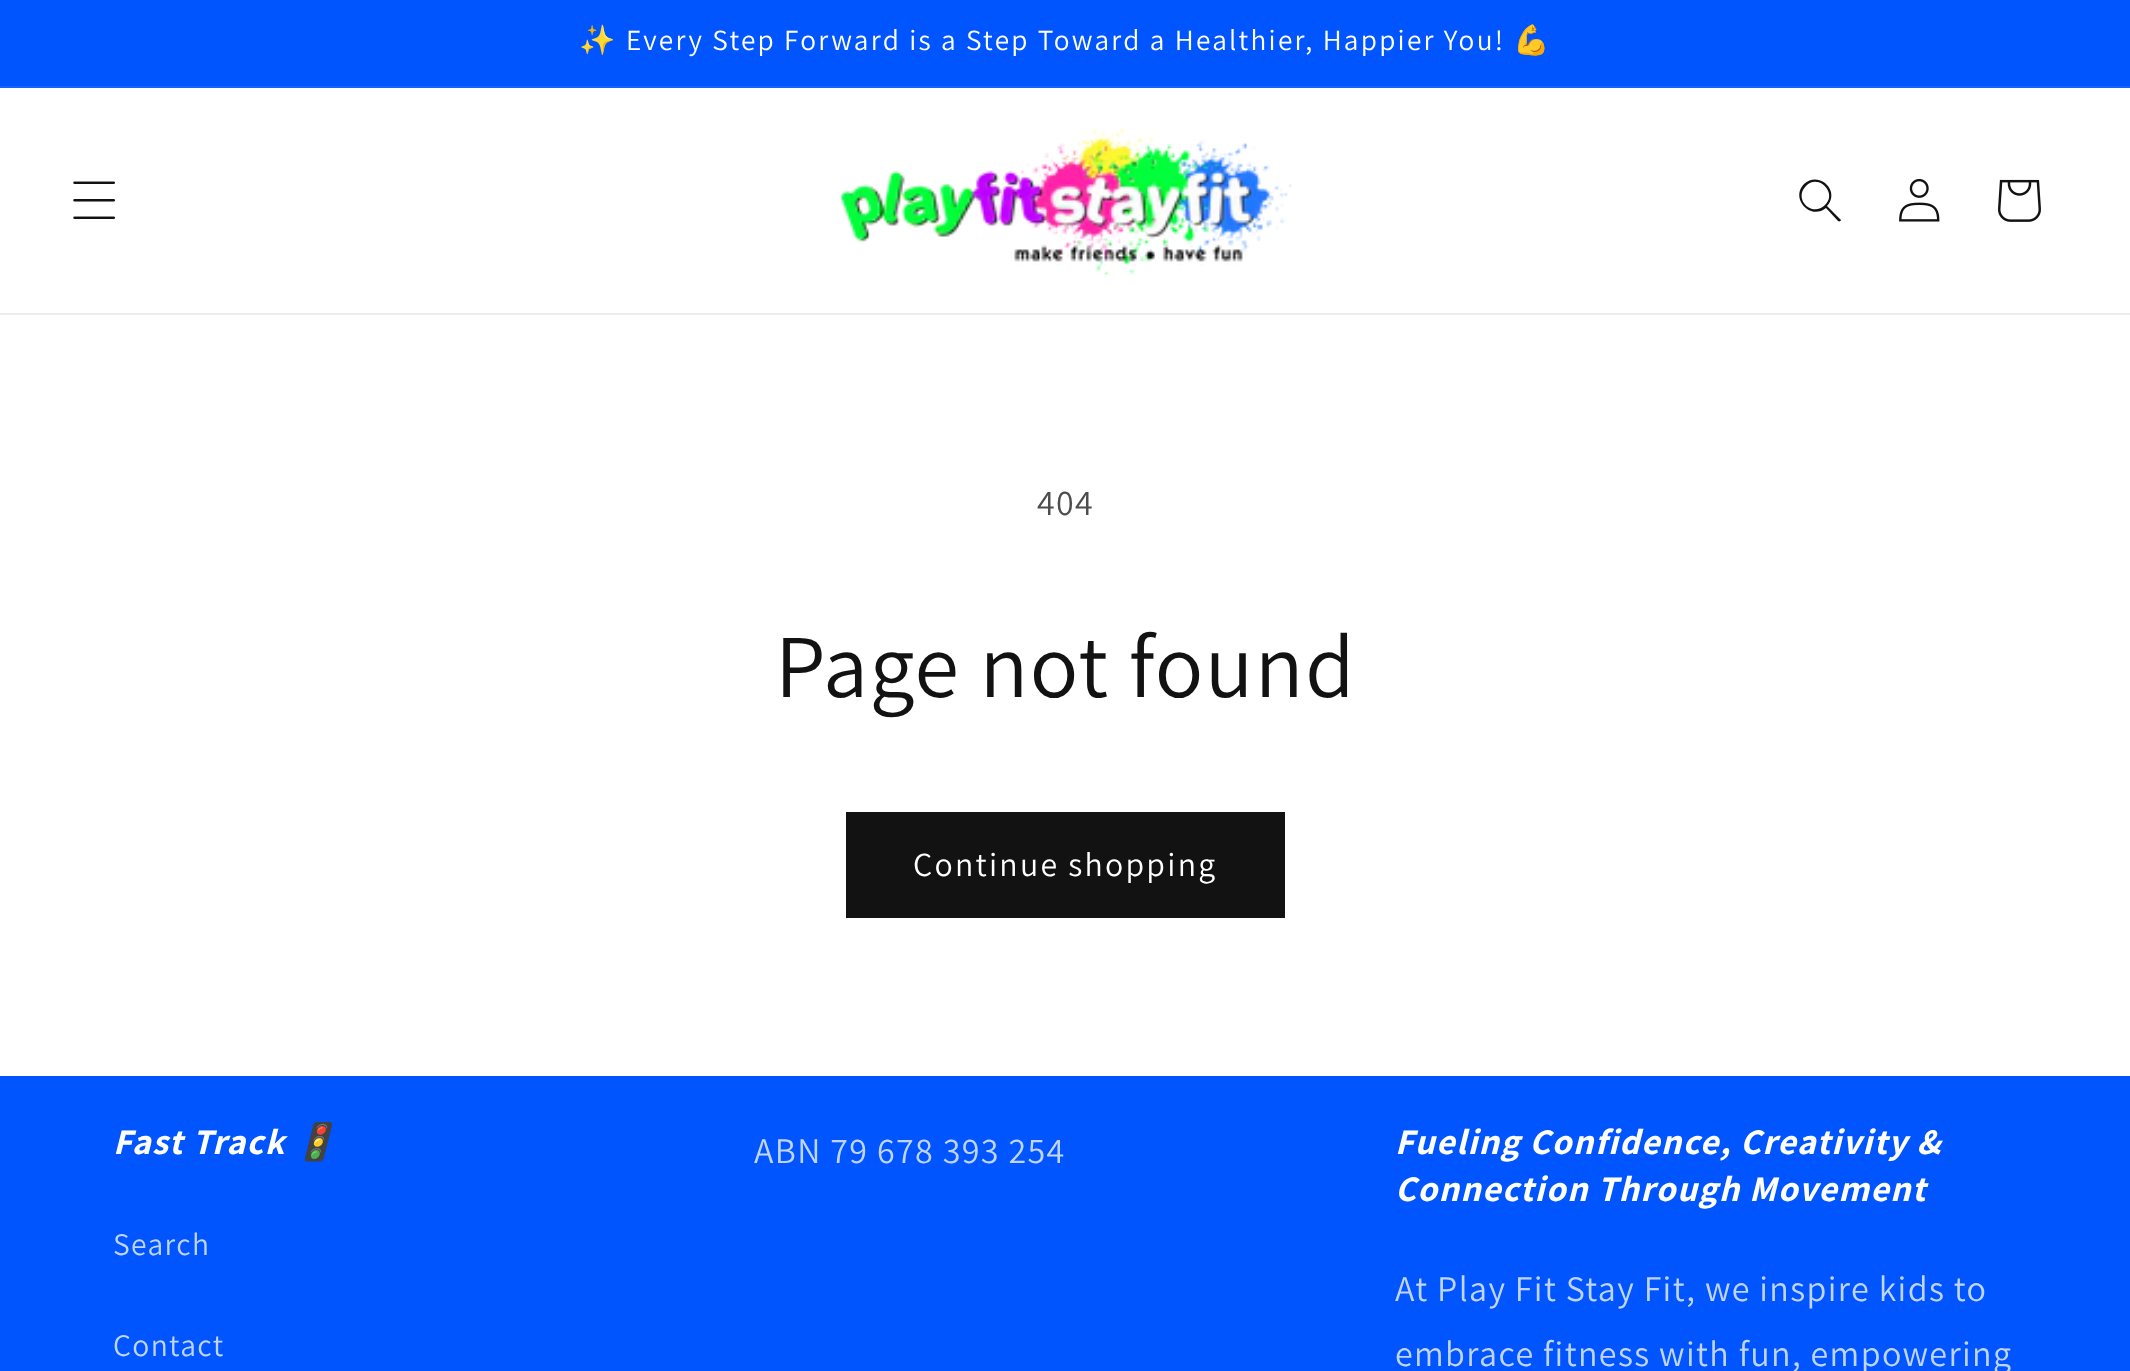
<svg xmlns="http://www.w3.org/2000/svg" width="2130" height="1371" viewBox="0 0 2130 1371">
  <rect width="100%" height="100%" fill="#fff"/>
  <path d="M0 0h2130v86H0z" fill="#05f"/>
  <path d="M0 86h2130v2H0z" fill="#1463ff"/>
  <path d="M0 313h2130v2H0z" fill="#ececec"/>
  <image x="73" y="181" width="42" height="38" href="img/1.png"/>
  <image x="841" y="128" width="451" height="147" href="img/2.png"/>
  <path d="M1825 205C1812 218 1793 199 1806 186C1818 173 1838 193 1825 205M1826 208C1810 221 1790 198 1804 184C1819 170 1841 191 1827 206L1841 220C1841 221 1839 222 1838 221Z" fill="#121212" fill-rule="evenodd"/>
  <image x="1899" y="178" width="41" height="44" href="img/3.png"/>
  <image x="1998" y="179" width="43" height="43" href="img/4.png"/>
  <path d="M846 812h439v106H846z" fill="#121212"/>
  <path d="M0 1076h2130v295H0z" fill="#05f"/>
  <text x="579" y="50" font-family="Noto Color Emoji" font-size="29.25" letter-spacing="2.25" fill="#fff">✨</text>
  <text x="626" y="50" font-family="Assistant" font-size="29.25" letter-spacing="2.25" fill="#fff">Every Step Forward is a Step Toward a Healthier, Happier You!</text>
  <text x="1513" y="50" font-family="Noto Color Emoji" font-size="29.25" letter-spacing="2.25" fill="#fff">💪</text>
  <text x="1037" y="515" font-family="Assistant" font-size="36" letter-spacing="1.35" fill="#4d4d4d">404</text>
  <text x="775" y="697" font-family="Assistant" font-size="90" letter-spacing="1.35" fill="#121212">Page not found</text>
  <text x="913" y="876" font-family="Assistant" font-size="33.75" letter-spacing="2.25" fill="#fff">Continue shopping</text>
  <text x="113" y="1154" font-family="Assistant" font-size="36" font-weight="bold" font-style="italic" letter-spacing="1.35" fill="#fff">Fast Track</text>
  <text x="293" y="1154" font-family="Noto Color Emoji" font-size="36" font-weight="bold" font-style="italic" letter-spacing="1.35" fill="#fff">🚦</text>
  <g font-family="Assistant" font-size="31.5" letter-spacing="1.35" fill="#bfd5ff">
    <text x="113" y="1255">Search</text>
    <text x="113" y="1356">Contact</text>
  </g>
  <text x="754" y="1163" font-family="Assistant" font-size="36" letter-spacing="1.35" fill="#bfd5ff">ABN 79 678 393 254</text>
  <g font-family="Assistant" font-size="36" font-weight="bold" font-style="italic" letter-spacing="1.35" fill="#fff">
    <text x="1395" y="1154">Fueling Confidence, Creativity &amp;</text>
    <text x="1395" y="1201">Connection Through Movement</text>
  </g>
  <g font-family="Assistant" font-size="36" letter-spacing="1.35" fill="#bfd5ff">
    <text x="1395" y="1301">At Play Fit Stay Fit, we inspire kids to</text>
    <text x="1395" y="1366">embrace fitness with fun, empowering</text>
  </g>
</svg>
